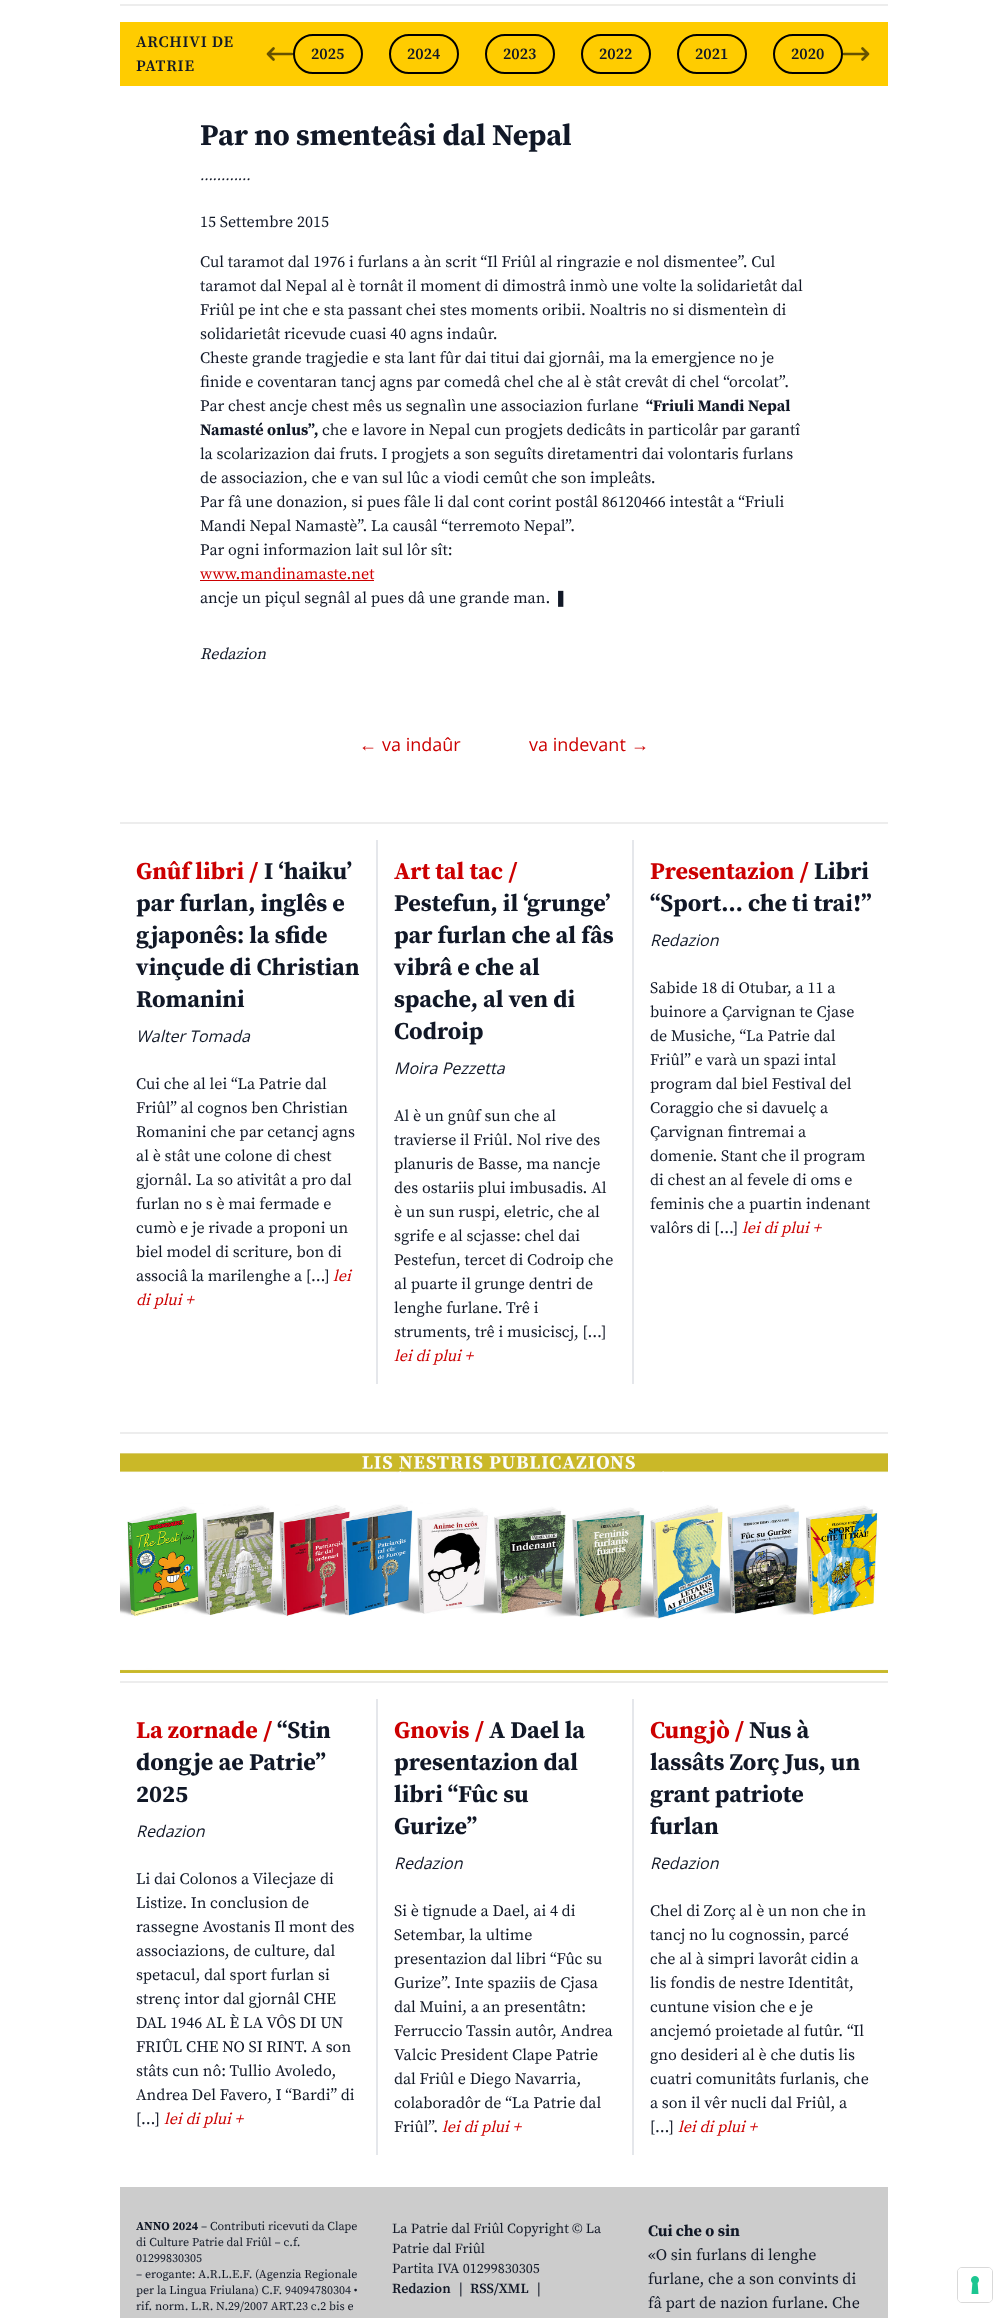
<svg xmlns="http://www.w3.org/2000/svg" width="1008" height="2318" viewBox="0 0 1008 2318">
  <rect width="100%" height="100%" fill="#fff"/>
  <path d="M120 4h768v2H120z" fill="#ededed"/>
  <path d="M120 22h768v64H120z" fill="#fc0"/>
  <path d="M273.5 59.5L268 54M268 54L273.5 48.5M268 54H292" fill="none" stroke="#665200" stroke-width="2.7" stroke-linecap="round" stroke-linejoin="round"/>
  <path d="M862.5 48.5L868 54M868 54L862.5 59.5M868 54H844" fill="none" stroke="#665200" stroke-width="2.7" stroke-linecap="round" stroke-linejoin="round"/>
  <rect x="294" y="35" width="68" height="38" rx="19" fill="none" stroke="#000" stroke-width="2"/>
  <rect x="390" y="35" width="68" height="38" rx="19" fill="none" stroke="#000" stroke-width="2"/>
  <rect x="486" y="35" width="68" height="38" rx="19" fill="none" stroke="#000" stroke-width="2"/>
  <rect x="582" y="35" width="68" height="38" rx="19" fill="none" stroke="#000" stroke-width="2"/>
  <rect x="678" y="35" width="68" height="38" rx="19" fill="none" stroke="#000" stroke-width="2"/>
  <rect x="774" y="35" width="68" height="38" rx="19" fill="none" stroke="#000" stroke-width="2"/>
  <path d="M200 580h174v1H200z" fill="#cc0001"/>
  <path d="M120 822h768v2H120z" fill="#ededed"/>
  <path d="M376 840h2v544H376z" fill="#e5e7eb"/>
  <path d="M632 840h2v544H632z" fill="#e5e7eb"/>
  <path d="M120 1432h768v2H120z" fill="#ededed"/>
  <image x="120" y="1453" width="768" height="220" href="img/1.png"/>
  <path d="M120 1681h768v2H120z" fill="#ededed"/>
  <path d="M376 1699h2v456H376z" fill="#e5e7eb"/>
  <path d="M632 1699h2v456H632z" fill="#e5e7eb"/>
  <path d="M120 2187h768v131H120z" fill="#ccc"/>
  <rect x="957.5" y="2267.5" width="35" height="35" rx="4.5" fill="none" stroke="#d9d9d9"/>
  <rect x="958" y="2268" width="34" height="34" rx="4" fill="#fff"/>
  <image x="971" y="2276" width="8" height="18" href="img/2.png"/>
  <g font-family="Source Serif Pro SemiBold" font-size="16" font-weight="600" letter-spacing="0.75" fill="#111827">
    <text x="136" y="47">ARCHIVI DE</text>
    <text x="136" y="71">PATRIE</text>
  </g>
  <g font-family="Source Serif Pro SemiBold" font-size="16" font-weight="600" fill="#111827">
    <text x="311" y="59">2025</text>
    <text x="407" y="59">2024</text>
    <text x="503" y="59">2023</text>
    <text x="599" y="59">2022</text>
    <text x="695" y="59">2021</text>
    <text x="791" y="59">2020</text>
  </g>
  <text x="200" y="145" font-family="Source Serif Pro" font-size="30" font-weight="bold" fill="#111827">Par no smenteâsi dal Nepal</text>
  <text x="200" y="180" font-family="Open Sans" font-size="16" font-style="italic" fill="#111827">............</text>
  <g font-family="Source Serif Pro" font-size="16" fill="#111827">
    <text x="200" y="227">15 Settembre 2015</text>
    <text x="200" y="267">Cul taramot dal 1976 i furlans a àn scrit “Il Friûl al ringrazie e nol dismentee”. Cul</text>
    <text x="200" y="291">taramot dal Nepal al è tornât il moment di dimostrâ inmò une volte la solidarietât dal</text>
    <text x="200" y="315">Friûl pe int che e sta passant chei stes moments oribii. Noaltris no si dismenteìn di</text>
    <text x="200" y="339">solidarietât ricevude cuasi 40 agns indaûr.</text>
    <text x="200" y="363">Cheste grande tragjedie e sta lant fûr dai titui dai gjornâi, ma la emergjence no je</text>
    <text x="200" y="387">finide e coventaran tancj agns par comedâ chel che al è stât crevât di chel “orcolat”.</text>
    <text x="200" y="411">Par chest ancje chest mês us segnalìn une associazion furlane</text>
  </g>
  <g font-family="Source Serif Pro" font-size="16" font-weight="bold" fill="#111827">
    <text x="646" y="411">“Friuli Mandi Nepal</text>
    <text x="200" y="435">Namasté onlus”,</text>
  </g>
  <g font-family="Source Serif Pro" font-size="16" fill="#111827">
    <text x="322" y="435">che e lavore in Nepal cun progjets dedicâts in particolâr par garantî</text>
    <text x="200" y="459">la scolarizazion dai fruts. I progjets a son seguîts diretamentri dai volontaris furlans</text>
    <text x="200" y="483">de associazion, che e van sul lûc a viodi cemût che son impleâts.</text>
    <text x="200" y="507">Par fâ une donazion, si pues fâle li dal cont corint postâl 86120466 intestât a “Friuli</text>
    <text x="200" y="531">Mandi Nepal Namastè”. La causâl “terremoto Nepal”.</text>
    <text x="200" y="555">Par ogni informazion lait sul lôr sît:</text>
  </g>
  <text x="200" y="579" font-family="Source Serif Pro" font-size="16" fill="#cc0001">www.mandinamaste.net</text>
  <text x="200" y="603" font-family="Source Serif Pro" font-size="16" fill="#111827">ancje un piçul segnâl al pues dâ une grande man.</text>
  <text x="554" y="603" font-family="DejaVu Sans" font-size="16" fill="#111827">❚</text>
  <text x="200" y="659" font-family="Source Serif Pro" font-size="16" font-style="italic" fill="#111827">Redazion</text>
  <text x="359" y="751" font-family="Liberation Sans" font-size="18" fill="#cc0001">←</text>
  <g font-family="Open Sans" font-size="18" fill="#cc0001">
    <text x="382" y="751">va indaûr</text>
    <text x="529" y="751">va indevant</text>
  </g>
  <text x="631" y="751" font-family="Liberation Sans" font-size="18" fill="#cc0001">→</text>
  <text x="136" y="879" font-family="Source Serif Pro" font-size="24" font-weight="bold" fill="#cc0001">Gnûf libri /</text>
  <g font-family="Source Serif Pro" font-size="24" font-weight="bold" fill="#111827">
    <text x="264" y="879">I ‘haiku’</text>
    <text x="136" y="911">par furlan, inglês e</text>
    <text x="136" y="943">gjaponês: la sfide</text>
    <text x="136" y="975">vinçude di Christian</text>
    <text x="136" y="1007">Romanini</text>
  </g>
  <text x="136" y="1042" font-family="Open Sans" font-size="16" font-style="italic" fill="#111827">Walter Tomada</text>
  <g font-family="Source Serif Pro" font-size="16" fill="#111827">
    <text x="136" y="1089">Cui che al lei “La Patrie dal</text>
    <text x="136" y="1113">Friûl” al cognos ben Christian</text>
    <text x="136" y="1137">Romanini che par cetancj agns</text>
    <text x="136" y="1161">al è stât une colone di chest</text>
    <text x="136" y="1185">gjornâl. La so ativitât a pro dal</text>
    <text x="136" y="1209">furlan no s è mai fermade e</text>
    <text x="136" y="1233">cumò e je rivade a proponi un</text>
    <text x="136" y="1257">biel model di scriture, bon di</text>
    <text x="136" y="1281">associâ la marilenghe a […]</text>
  </g>
  <g font-family="Source Serif Pro" font-size="16" font-style="italic" fill="#cc0001">
    <text x="333" y="1281">lei</text>
    <text x="136" y="1305">di plui +</text>
  </g>
  <text x="394" y="879" font-family="Source Serif Pro" font-size="24" font-weight="bold" fill="#cc0001">Art tal tac /</text>
  <g font-family="Source Serif Pro" font-size="24" font-weight="bold" fill="#111827">
    <text x="394" y="911">Pestefun, il ‘grunge’</text>
    <text x="394" y="943">par furlan che al fâs</text>
    <text x="394" y="975">vibrâ e che al</text>
    <text x="394" y="1007">spache, al ven di</text>
    <text x="394" y="1039">Codroip</text>
  </g>
  <text x="394" y="1074" font-family="Open Sans" font-size="16" font-style="italic" fill="#111827">Moira Pezzetta</text>
  <g font-family="Source Serif Pro" font-size="16" fill="#111827">
    <text x="394" y="1121">Al è un gnûf sun che al</text>
    <text x="394" y="1145">travierse il Friûl. Nol rive des</text>
    <text x="394" y="1169">planuris de Basse, ma nancje</text>
    <text x="394" y="1193">des ostariis plui imbusadis. Al</text>
    <text x="394" y="1217">è un sun ruspi, eletric, che al</text>
    <text x="394" y="1241">sgrife e al scjasse: chel dai</text>
    <text x="394" y="1265">Pestefun, tercet di Codroip che</text>
    <text x="394" y="1289">al puarte il grunge dentri de</text>
    <text x="394" y="1313">lenghe furlane. Trê i</text>
    <text x="394" y="1337">struments, trê i musiciscj, […]</text>
  </g>
  <text x="394" y="1361" font-family="Source Serif Pro" font-size="16" font-style="italic" fill="#cc0001">lei di plui +</text>
  <text x="650" y="879" font-family="Source Serif Pro" font-size="24" font-weight="bold" fill="#cc0001">Presentazion /</text>
  <g font-family="Source Serif Pro" font-size="24" font-weight="bold" fill="#111827">
    <text x="814" y="879">Libri</text>
    <text x="650" y="911">“Sport… che ti trai!”</text>
  </g>
  <text x="650" y="946" font-family="Open Sans" font-size="16" font-style="italic" fill="#111827">Redazion</text>
  <g font-family="Source Serif Pro" font-size="16" fill="#111827">
    <text x="650" y="993">Sabide 18 di Otubar, a 11 a</text>
    <text x="650" y="1017">buinore a Çarvignan te Cjase</text>
    <text x="650" y="1041">de Musiche, “La Patrie dal</text>
    <text x="650" y="1065">Friûl” e varà un spazi intal</text>
    <text x="650" y="1089">program dal biel Festival del</text>
    <text x="650" y="1113">Coraggio che si davuelç a</text>
    <text x="650" y="1137">Çarvignan fintremai a</text>
    <text x="650" y="1161">domenie. Stant che il program</text>
    <text x="650" y="1185">di chest an al fevele di oms e</text>
    <text x="650" y="1209">feminis che a puartin indenant</text>
    <text x="650" y="1233">valôrs di […]</text>
  </g>
  <text x="742" y="1233" font-family="Source Serif Pro" font-size="16" font-style="italic" fill="#cc0001">lei di plui +</text>
  <text x="136" y="1738" font-family="Source Serif Pro" font-size="24" font-weight="bold" fill="#cc0001">La zornade /</text>
  <g font-family="Source Serif Pro" font-size="24" font-weight="bold" fill="#111827">
    <text x="277" y="1738">“Stin</text>
    <text x="136" y="1770">dongje ae Patrie”</text>
    <text x="136" y="1802">2025</text>
  </g>
  <text x="136" y="1837" font-family="Open Sans" font-size="16" font-style="italic" fill="#111827">Redazion</text>
  <g font-family="Source Serif Pro" font-size="16" fill="#111827">
    <text x="136" y="1884">Li dai Colonos a Vilecjaze di</text>
    <text x="136" y="1908">Listize. In conclusion de</text>
    <text x="136" y="1932">rassegne Avostanis Il mont des</text>
    <text x="136" y="1956">associazions, de culture, dal</text>
    <text x="136" y="1980">spetacul, dal sport furlan si</text>
    <text x="136" y="2004">strenç intor dal gjornâl CHE</text>
    <text x="136" y="2028">DAL 1946 AL È LA VÔS DI UN</text>
    <text x="136" y="2052">FRIÛL CHE NO SI RINT. A son</text>
    <text x="136" y="2076">stâts cun nô: Tullio Avoledo,</text>
    <text x="136" y="2100">Andrea Del Favero, I “Bardi” di</text>
    <text x="136" y="2124">[…]</text>
  </g>
  <text x="164" y="2124" font-family="Source Serif Pro" font-size="16" font-style="italic" fill="#cc0001">lei di plui +</text>
  <text x="394" y="1738" font-family="Source Serif Pro" font-size="24" font-weight="bold" fill="#cc0001">Gnovis /</text>
  <g font-family="Source Serif Pro" font-size="24" font-weight="bold" fill="#111827">
    <text x="489" y="1738">A Dael la</text>
    <text x="394" y="1770">presentazion dal</text>
    <text x="394" y="1802">libri “Fûc su</text>
    <text x="394" y="1834">Gurize”</text>
  </g>
  <text x="394" y="1869" font-family="Open Sans" font-size="16" font-style="italic" fill="#111827">Redazion</text>
  <g font-family="Source Serif Pro" font-size="16" fill="#111827">
    <text x="394" y="1916">Si è tignude a Dael, ai 4 di</text>
    <text x="394" y="1940">Setembar, la ultime</text>
    <text x="394" y="1964">presentazion dal libri “Fûc su</text>
    <text x="394" y="1988">Gurize”. Inte spaziis de Cjasa</text>
    <text x="394" y="2012">dal Muini, a an presentâtn:</text>
    <text x="394" y="2036">Ferruccio Tassin autôr, Andrea</text>
    <text x="394" y="2060">Valcic President Clape Patrie</text>
    <text x="394" y="2084">dal Friûl e Diego Navarria,</text>
    <text x="394" y="2108">colaboradôr de “La Patrie dal</text>
    <text x="394" y="2132">Friûl”.</text>
  </g>
  <text x="442" y="2132" font-family="Source Serif Pro" font-size="16" font-style="italic" fill="#cc0001">lei di plui +</text>
  <text x="650" y="1738" font-family="Source Serif Pro" font-size="24" font-weight="bold" fill="#cc0001">Cungjò /</text>
  <g font-family="Source Serif Pro" font-size="24" font-weight="bold" fill="#111827">
    <text x="749" y="1738">Nus à</text>
    <text x="650" y="1770">lassâts Zorç Jus, un</text>
    <text x="650" y="1802">grant patriote</text>
    <text x="650" y="1834">furlan</text>
  </g>
  <text x="650" y="1869" font-family="Open Sans" font-size="16" font-style="italic" fill="#111827">Redazion</text>
  <g font-family="Source Serif Pro" font-size="16" fill="#111827">
    <text x="650" y="1916">Chel di Zorç al è un non che in</text>
    <text x="650" y="1940">tancj no lu cognossin, parcé</text>
    <text x="650" y="1964">che al à simpri lavorât cidin a</text>
    <text x="650" y="1988">lis fondis de nestre Identitât,</text>
    <text x="650" y="2012">cuntune vision che e je</text>
    <text x="650" y="2036">ancjemó proietade al futûr. “Il</text>
    <text x="650" y="2060">gno desideri al è che dutis lis</text>
    <text x="650" y="2084">cuatri comunitâts furlanis, che</text>
    <text x="650" y="2108">a son il vêr nucli dal Friûl, a</text>
    <text x="650" y="2132">[…]</text>
  </g>
  <text x="678" y="2132" font-family="Source Serif Pro" font-size="16" font-style="italic" fill="#cc0001">lei di plui +</text>
  <text x="136" y="2230" font-family="Source Serif Pro" font-size="12" font-weight="bold" fill="#111827">ANNO 2024</text>
  <g font-family="Source Serif Pro" font-size="12" fill="#111827">
    <text x="201" y="2230">– Contributi ricevuti da Clape</text>
    <text x="136" y="2246">di Culture Patrie dal Friûl – c.f.</text>
    <text x="136" y="2262">01299830305</text>
    <text x="136" y="2278">– erogante: A.R.L.E.F. (Agenzia Regionale</text>
    <text x="136" y="2294">per la Lingua Friulana) C.F. 94094780304 •</text>
    <text x="136" y="2310">rif. norm. L.R. N.29/2007 ART.23 c.2 bis e</text>
  </g>
  <g font-family="Source Serif Pro" font-size="14" fill="#111827">
    <text x="392" y="2233">La Patrie dal Friûl Copyright © La</text>
    <text x="392" y="2253">Patrie dal Friûl</text>
    <text x="392" y="2273">Partita IVA 01299830305</text>
  </g>
  <g font-family="Source Serif Pro SemiBold" font-size="14" font-weight="600" fill="#111827">
    <text x="392" y="2293">Redazion</text>
    <text x="459" y="2293">|</text>
    <text x="470" y="2293">RSS/XML</text>
    <text x="537" y="2293">|</text>
  </g>
  <text x="648" y="2236" font-family="Source Serif Pro" font-size="16" font-weight="bold" fill="#111827">Cui che o sin</text>
  <g font-family="Source Serif Pro" font-size="16" fill="#111827">
    <text x="648" y="2260">«O sin furlans di lenghe</text>
    <text x="648" y="2284">furlane, che a son convints di</text>
    <text x="648" y="2308">fâ part de nazion furlane. Che</text>
  </g>
</svg>
